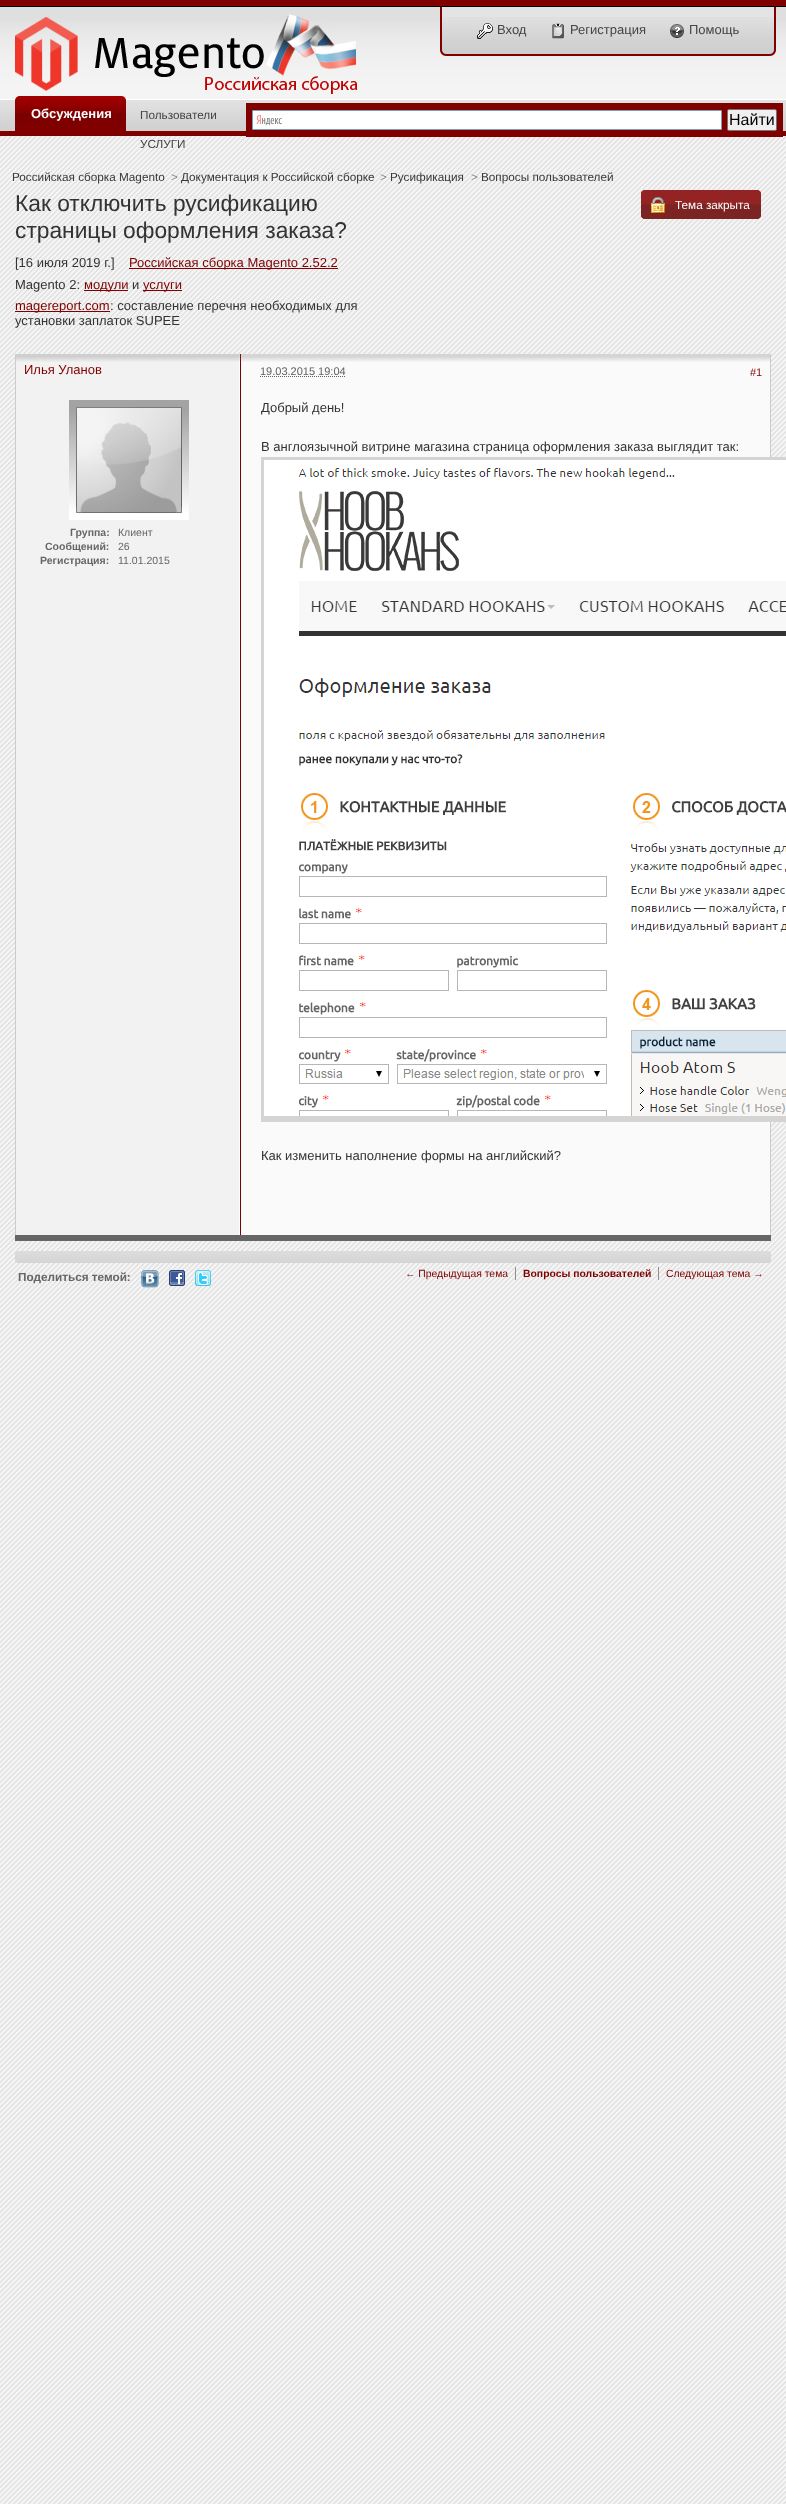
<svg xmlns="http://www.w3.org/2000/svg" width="786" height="2504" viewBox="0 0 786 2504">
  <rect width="100%" height="100%" fill="#e2e2e2"/>
  <image x="0" y="136" width="786" height="2368" href="img/1.png"/>
  <image x="0" y="0" width="786" height="100" href="img/2.png"/>
  <image x="15" y="14" width="342" height="80" href="img/3.png"/>
  <path d="M442 7h332v10H442z" fill="#e4e4e4"/>
  <image x="440" y="17" width="336" height="39" href="img/4.png"/>
  <path d="M440 7H776V50C776 53 773 56 770 56H446C443 56 440 53 440 50ZM442 7H774V50C774 52 772 54 770 54H446C444 54 442 52 442 50Z" fill="#800000" fill-rule="evenodd"/>
  <image x="477" y="23" width="16" height="16" href="img/5.png"/>
  <image x="552" y="23" width="12" height="16" href="img/6.png"/>
  <image x="670" y="24" width="14" height="14" href="img/7.png"/>
  <image x="0" y="100" width="786" height="31" href="img/8.png"/>
  <path d="M0 131h786v5H0z" fill="#800000"/>
  <image x="15" y="96" width="6" height="35" href="img/9.png"/>
  <image x="21" y="96" width="105" height="35" href="img/10.png"/>
  <path d="M246 103h537v34H246z" fill="#800000"/>
  <path d="M253 111h468v18H253z" fill="#fff"/>
  <image x="256" y="115" width="26" height="11" href="img/11.png"/>
  <path d="M252.5 110.5h469v19H252.5z" fill="none" stroke="#7f9db9"/>
  <rect x="727.5" y="109.5" width="49" height="21" rx="1.5" fill="#efefef" stroke="#767676"/>
  <path d="M129 268h209v1H129z" fill="#800000"/>
  <path d="M84 290h44v1H84z" fill="#800000"/>
  <path d="M143 290h39v1H143z" fill="#800000"/>
  <path d="M15 311h95v1H15z" fill="#800000"/>
  <image x="641" y="190" width="6" height="29" href="img/12.png"/>
  <image x="647" y="190" width="114" height="29" href="img/13.png"/>
  <image x="651" y="197" width="14" height="16" href="img/14.png"/>
  <path d="M241 354h529v881H241z" fill="#fafafa"/>
  <path d="M15 1235h756v6H15z" fill="#666"/>
  <image x="16" y="354" width="225" height="881" href="img/15.png"/>
  <path d="M770 354h1v881H770z" fill="#ccc"/>
  <path d="M15 354h1v881H15z" fill="#ccc"/>
  <image x="16" y="354" width="754" height="8" href="img/16.png"/>
  <image x="69" y="400" width="120" height="120" href="img/17.png"/>
  <path d="M260 376.5H346" fill="none" stroke="#606060" stroke-dasharray="1 1"/>
  <path d="M261 457h525v3H261z" fill="#d4d4d4"/>
  <path d="M261 1116h525v6H261z" fill="#d4d4d4"/>
  <path d="M261 457h3v665H261z" fill="#d4d4d4"/>
  <image x="264" y="460" width="522" height="656" href="img/18.png"/>
  <image x="15" y="1251" width="756" height="12" href="img/19.png"/>
  <image x="141" y="1270" width="18" height="18" href="img/20.png"/>
  <image x="169" y="1270" width="16" height="16" href="img/21.png"/>
  <image x="195" y="1270" width="16" height="16" href="img/22.png"/>
  <path d="M515 1267h1v13H515z" fill="#8f8f8f"/>
  <path d="M658 1267h1v13H658z" fill="#8f8f8f"/>
  <g font-family="Liberation Sans" font-size="13" fill="#444">
    <text x="497" y="34">Вход</text>
    <text x="570" y="34">Регистрация</text>
    <text x="689" y="34">Помощь</text>
  </g>
  <text x="31" y="118" font-family="Liberation Sans" font-size="13" font-weight="bold" fill="#fff">Обсуждения</text>
  <g font-family="Liberation Sans" font-size="11.75" fill="#444">
    <text x="140" y="119">Пользователи</text>
    <text x="140" y="148">УСЛУГИ</text>
  </g>
  <text x="729" y="125" font-family="Liberation Sans" font-size="16" fill="#000">Найти</text>
  <text x="12" y="181" font-family="Liberation Sans" font-size="11.75" fill="#393939">Российская сборка Magento</text>
  <text x="171" y="181" font-family="Liberation Sans" font-size="11.75" fill="#878787">&gt;</text>
  <text x="181" y="181" font-family="Liberation Sans" font-size="11.75" fill="#393939">Документация к Российской сборке</text>
  <text x="380" y="181" font-family="Liberation Sans" font-size="11.75" fill="#878787">&gt;</text>
  <text x="390" y="181" font-family="Liberation Sans" font-size="11.75" fill="#393939">Русификация</text>
  <text x="471" y="181" font-family="Liberation Sans" font-size="11.75" fill="#878787">&gt;</text>
  <text x="481" y="181" font-family="Liberation Sans" font-size="11.75" fill="#393939">Вопросы пользователей</text>
  <g font-family="Liberation Sans" font-size="22.75" fill="#333">
    <text x="15" y="211">Как отключить русификацию</text>
    <text x="15" y="238">страницы оформления заказа?</text>
  </g>
  <text x="15" y="267" font-family="Liberation Sans" font-size="13" fill="#333">[16 июля 2019 г.]</text>
  <text x="129" y="267" font-family="Liberation Sans" font-size="13" fill="#800000">Российская сборка Magento 2.52.2</text>
  <text x="15" y="289" font-family="Liberation Sans" font-size="13" fill="#333">Magento 2:</text>
  <text x="84" y="289" font-family="Liberation Sans" font-size="13" fill="#800000">модули</text>
  <text x="132" y="289" font-family="Liberation Sans" font-size="13" fill="#333">и</text>
  <g font-family="Liberation Sans" font-size="13" fill="#800000">
    <text x="143" y="289">услуги</text>
    <text x="15" y="310">magereport.com</text>
  </g>
  <g font-family="Liberation Sans" font-size="13" fill="#333">
    <text x="110" y="310">: составление перечня необходимых для</text>
    <text x="15" y="325">установки заплаток SUPEE</text>
  </g>
  <text x="675" y="209" font-family="Liberation Sans" font-size="11.75" fill="#fff">Тема закрыта</text>
  <text x="24" y="374" font-family="Liberation Sans" font-size="13" fill="#800000">Илья Уланов</text>
  <text x="750" y="376" font-family="Liberation Sans" font-size="11" fill="#800000">#1</text>
  <text x="70" y="536" font-family="Liberation Sans" font-size="10.5" font-weight="bold" fill="#666">Группа:</text>
  <text x="118" y="536" font-family="Liberation Sans" font-size="10.5" fill="#666">Клиент</text>
  <text x="45" y="550" font-family="Liberation Sans" font-size="10.5" font-weight="bold" fill="#666">Сообщений:</text>
  <text x="118" y="550" font-family="Liberation Sans" font-size="10.5" fill="#666">26</text>
  <text x="40" y="564" font-family="Liberation Sans" font-size="10.5" font-weight="bold" fill="#666">Регистрация:</text>
  <text x="118" y="564" font-family="Liberation Sans" font-size="10.5" fill="#666">11.01.2015</text>
  <text x="260" y="375" font-family="Liberation Sans" font-size="11" fill="#606060">19.03.2015 19:04</text>
  <g font-family="Liberation Sans" font-size="13" fill="#333">
    <text x="261" y="412">Добрый день!</text>
    <text x="261" y="451">В англоязычной витрине магазина страница оформления заказа выглядит так:</text>
    <text x="261" y="1160">Как изменить наполнение формы на английский?</text>
  </g>
  <text x="18" y="1281" font-family="Liberation Sans" font-size="11.75" font-weight="bold" fill="#666">Поделиться темой:</text>
  <text x="405" y="1277" font-family="Liberation Sans" font-size="10.4" fill="#800000">← Предыдущая тема</text>
  <text x="523" y="1277" font-family="Liberation Sans" font-size="10.4" font-weight="bold" fill="#800000">Вопросы пользователей</text>
  <text x="666" y="1277" font-family="Liberation Sans" font-size="10.4" fill="#800000">Следующая тема →</text>
</svg>
